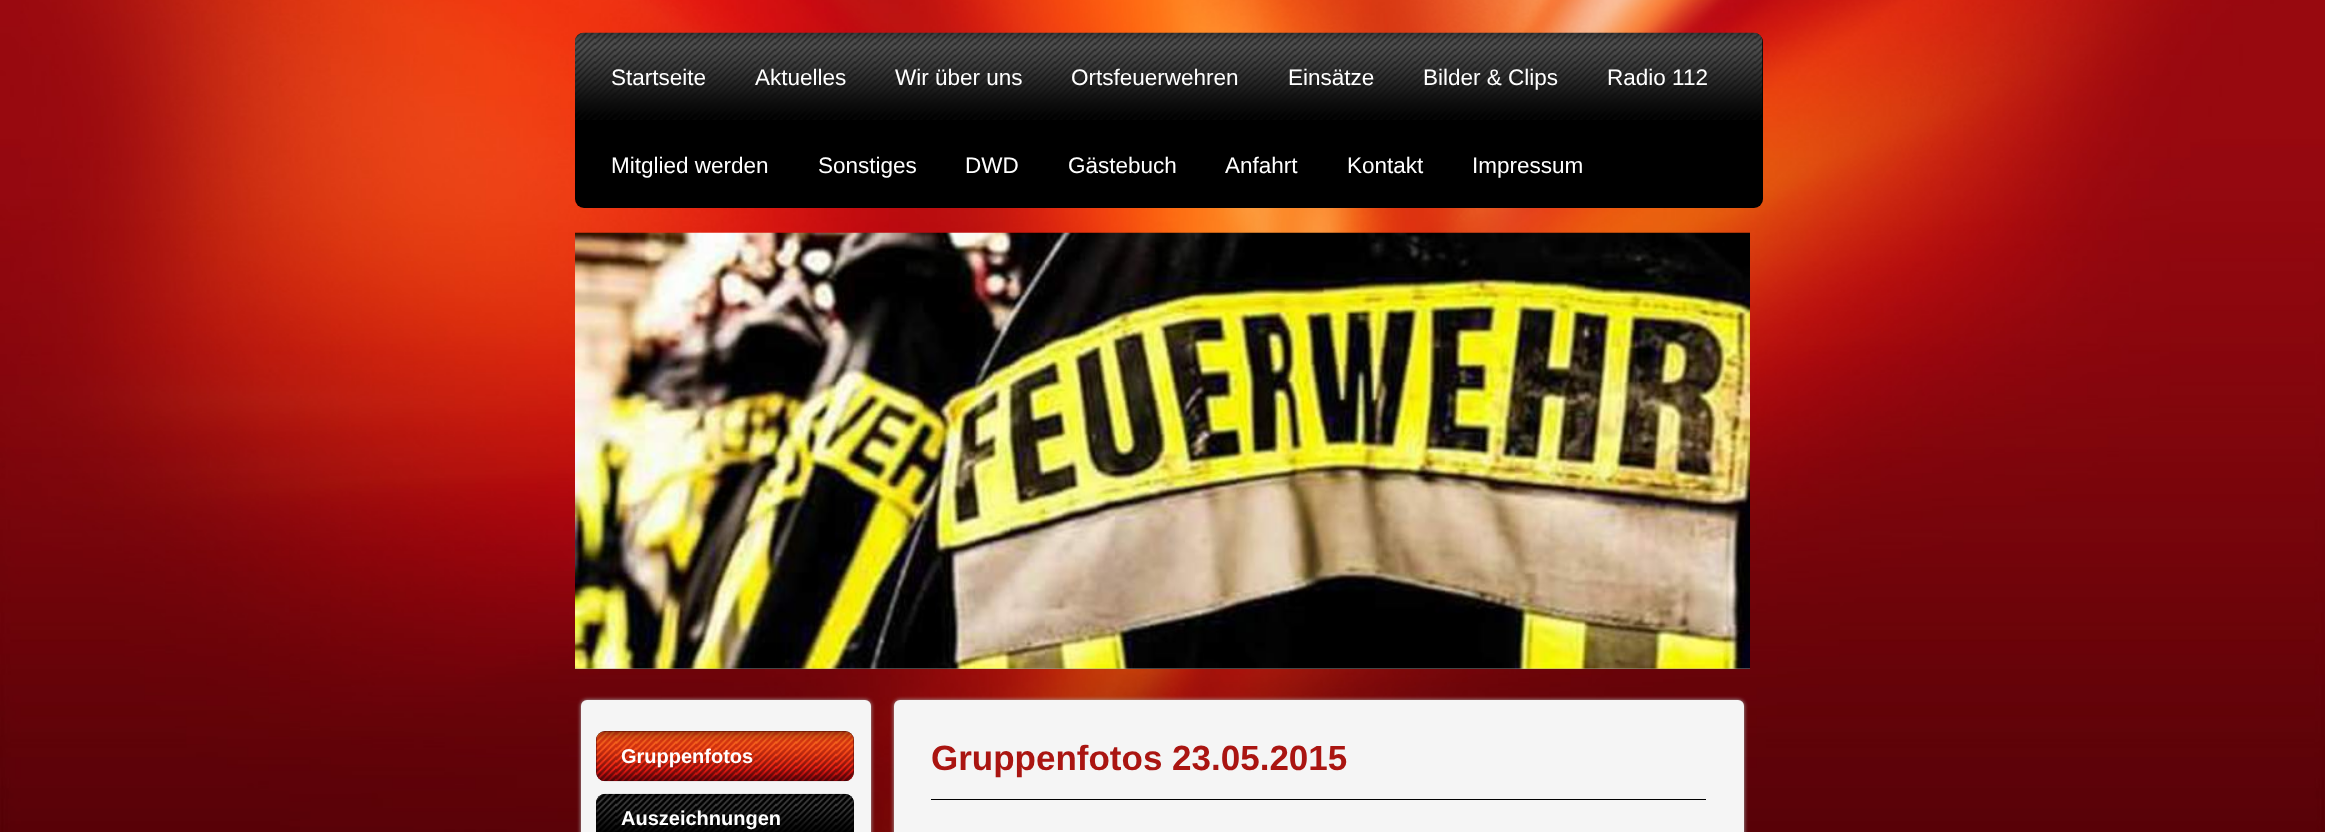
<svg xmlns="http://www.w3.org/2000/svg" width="2325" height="832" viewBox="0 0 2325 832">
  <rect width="100%" height="100%" fill="#fff"/>
  <image x="0" y="0" width="2325" height="832" href="img/1.png"/>
  <rect x="575" y="33" width="1188" height="175" rx="9" fill="#000"/>
  <image x="575" y="32" width="1188" height="88" href="img/2.png"/>
  <path d="M575 668h1175v1H575z" fill="#a0a0a0"/>
  <image x="575" y="232" width="1175" height="437" href="img/3.png"/>
  <rect x="581" y="700" width="290" height="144" rx="6" fill="#aaa" filter="blur(2px)"/>
  <rect x="581" y="700" width="290" height="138" rx="6" fill="#f5f5f5"/>
  <rect x="596" y="731" width="258" height="50" rx="9" fill="#400103"/>
  <image x="596" y="731" width="258" height="51" href="img/4.png"/>
  <rect x="596" y="794" width="258" height="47" rx="9" fill="#000"/>
  <image x="596" y="793" width="258" height="39" href="img/5.png"/>
  <rect x="894" y="700" width="850" height="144" rx="6" fill="#aaa" filter="blur(2px)"/>
  <rect x="894" y="700" width="850" height="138" rx="6" fill="#f5f5f5"/>
  <path d="M931 799h775v1H931z" fill="#000"/>
  <g font-family="Liberation Sans" font-size="22.5" fill="#fff">
    <text x="611" y="85">Startseite</text>
    <text x="755" y="85">Aktuelles</text>
    <text x="895" y="85">Wir über uns</text>
    <text x="1071" y="85">Ortsfeuerwehren</text>
    <text x="1288" y="85">Einsätze</text>
    <text x="1423" y="85">Bilder &amp; Clips</text>
    <text x="1607" y="85">Radio 112</text>
    <text x="611" y="173">Mitglied werden</text>
    <text x="818" y="173">Sonstiges</text>
    <text x="965" y="173">DWD</text>
    <text x="1068" y="173">Gästebuch</text>
    <text x="1225" y="173">Anfahrt</text>
    <text x="1347" y="173">Kontakt</text>
    <text x="1472" y="173">Impressum</text>
  </g>
  <g font-family="Liberation Sans" font-size="20" font-weight="bold" fill="#fff">
    <text x="621" y="763">Gruppenfotos</text>
    <text x="621" y="825">Auszeichnungen</text>
  </g>
  <text x="931" y="770" font-family="Liberation Sans" font-size="35" font-weight="bold" fill="#aa1511">Gruppenfotos 23.05.2015</text>
</svg>
